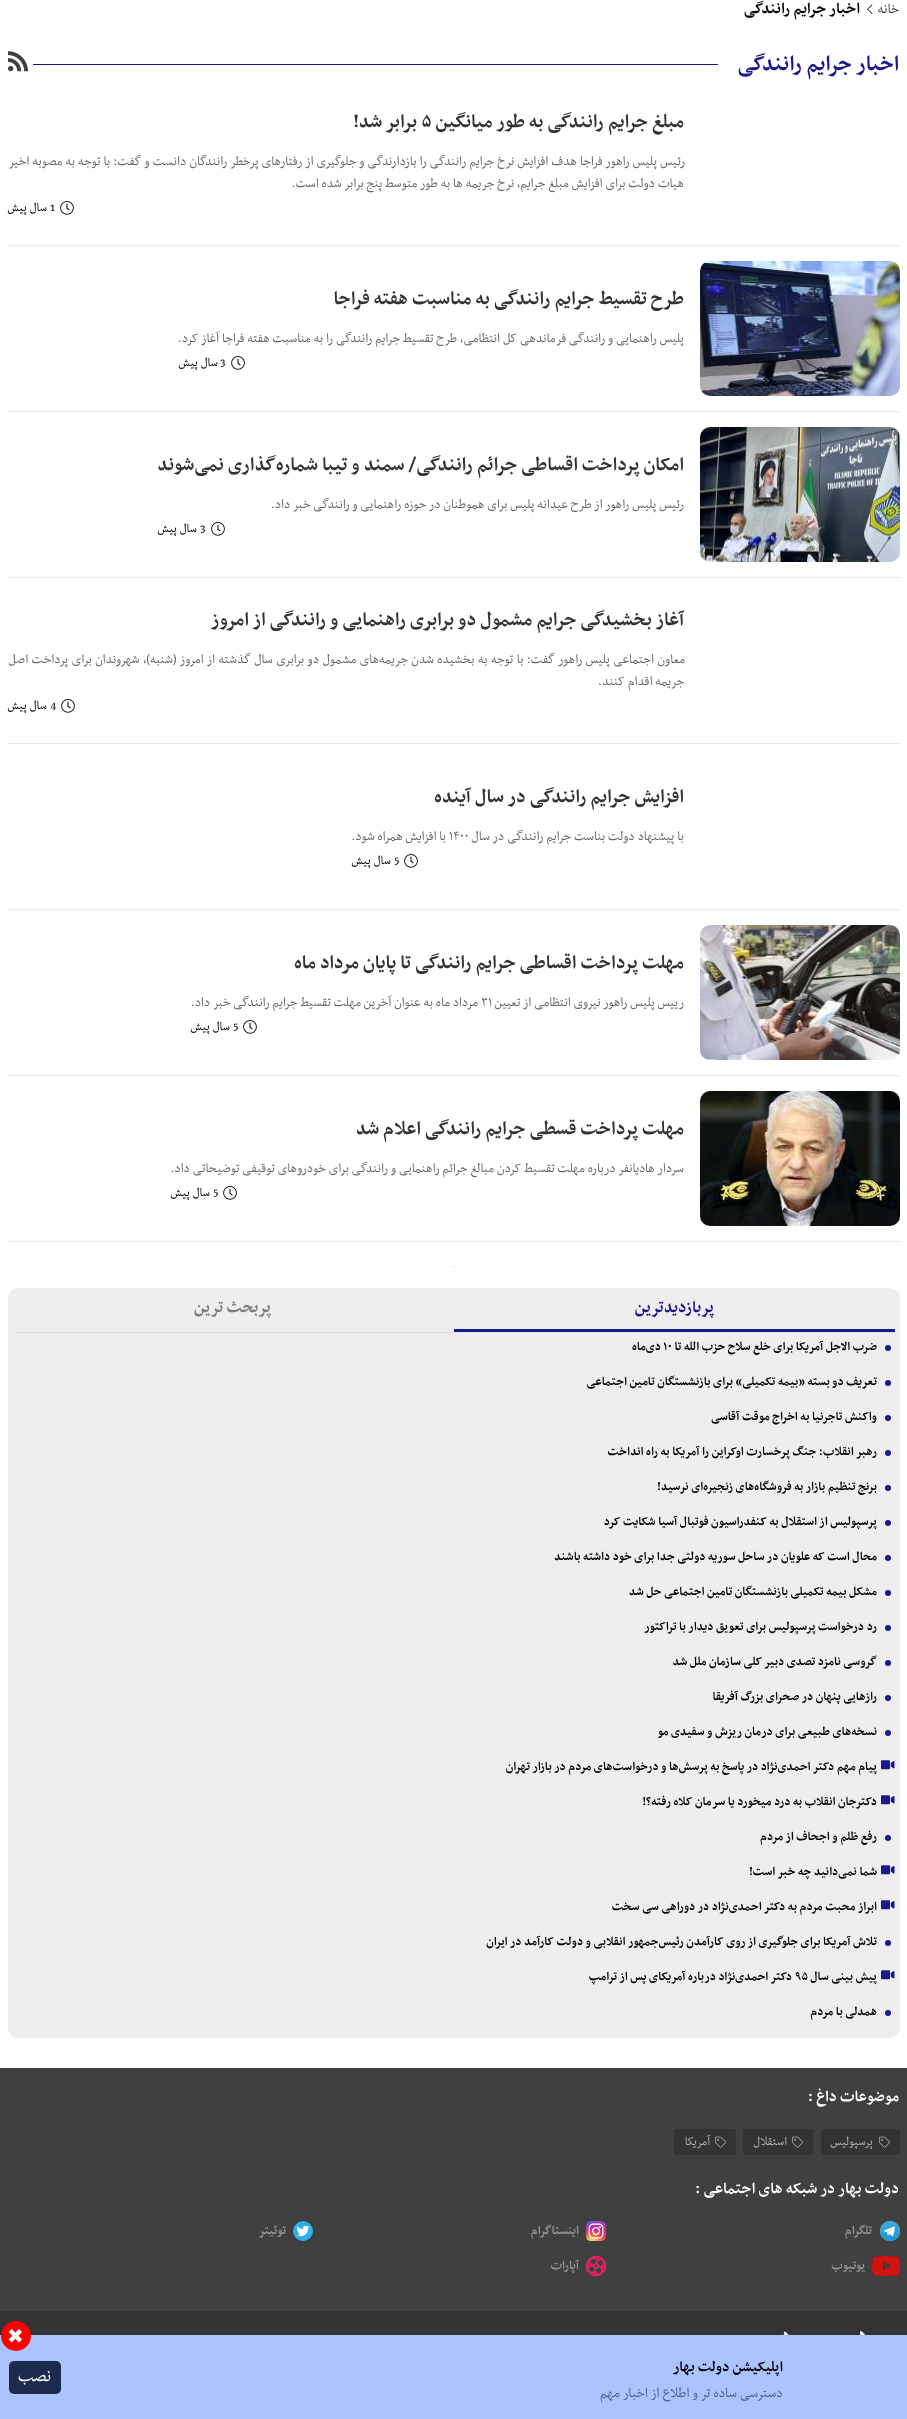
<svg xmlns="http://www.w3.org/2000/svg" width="907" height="2419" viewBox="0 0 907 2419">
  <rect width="100%" height="100%" fill="#fff"/>
  <image x="867" y="4" width="6" height="10" href="img/1.png"/>
  <path d="M33 64h685v1H33z" fill="#19198c"/>
  <image x="8" y="51" width="20" height="21" href="img/2.png"/>
  <path d="M8 245h892v1H8z" fill="#ebebeb"/>
  <image x="60" y="201" width="14" height="14" href="img/3.png"/>
  <path d="M8 411h892v1H8z" fill="#ebebeb"/>
  <image x="700" y="261" width="200" height="135" href="img/4.png"/>
  <image x="231" y="356" width="14" height="14" href="img/3.png"/>
  <path d="M8 577h892v1H8z" fill="#ebebeb"/>
  <image x="700" y="427" width="200" height="135" href="img/5.png"/>
  <image x="211" y="522" width="14" height="14" href="img/3.png"/>
  <path d="M8 743h892v1H8z" fill="#ebebeb"/>
  <image x="61" y="699" width="14" height="14" href="img/3.png"/>
  <path d="M8 909h892v1H8z" fill="#ebebeb"/>
  <image x="404" y="854" width="14" height="14" href="img/3.png"/>
  <path d="M8 1075h892v1H8z" fill="#ebebeb"/>
  <image x="700" y="925" width="200" height="135" href="img/6.png"/>
  <image x="243" y="1020" width="14" height="14" href="img/3.png"/>
  <path d="M8 1241h892v1H8z" fill="#ebebeb"/>
  <image x="700" y="1091" width="200" height="135" href="img/7.png"/>
  <image x="223" y="1186" width="14" height="14" href="img/3.png"/>
  <circle cx="454" cy="1267" r="1" fill="#ebebeb"/>
  <rect x="8" y="1288" width="892" height="750" rx="10" fill="#eee"/>
  <path d="M13 1332h882v1H13z" fill="#dee2e6"/>
  <path d="M454 1329h441v3H454z" fill="#19198c"/>
  <circle cx="888" cy="1348" r="3" fill="#19198c"/>
  <circle cx="888" cy="1383" r="3" fill="#19198c"/>
  <circle cx="888" cy="1418" r="3" fill="#19198c"/>
  <circle cx="888" cy="1453" r="3" fill="#19198c"/>
  <circle cx="888" cy="1488" r="3" fill="#19198c"/>
  <circle cx="888" cy="1523" r="3" fill="#19198c"/>
  <circle cx="888" cy="1558" r="3" fill="#19198c"/>
  <circle cx="888" cy="1593" r="3" fill="#19198c"/>
  <circle cx="888" cy="1628" r="3" fill="#19198c"/>
  <circle cx="888" cy="1663" r="3" fill="#19198c"/>
  <circle cx="888" cy="1698" r="3" fill="#19198c"/>
  <circle cx="888" cy="1733" r="3" fill="#19198c"/>
  <image x="881" y="1760" width="14" height="10" href="img/8.png"/>
  <image x="881" y="1795" width="14" height="10" href="img/8.png"/>
  <circle cx="888" cy="1838" r="3" fill="#19198c"/>
  <image x="881" y="1865" width="14" height="10" href="img/8.png"/>
  <image x="881" y="1900" width="14" height="10" href="img/8.png"/>
  <circle cx="888" cy="1943" r="3" fill="#19198c"/>
  <image x="881" y="1970" width="14" height="10" href="img/8.png"/>
  <circle cx="888" cy="2013" r="3" fill="#19198c"/>
  <path d="M0 2068h907v243H0z" fill="#404040"/>
  <rect x="821" y="2129" width="79" height="26" rx="3" fill="#333"/>
  <image x="879" y="2136" width="11" height="12" href="img/9.png"/>
  <rect x="743" y="2129" width="70" height="26" rx="3" fill="#333"/>
  <image x="792" y="2136" width="11" height="12" href="img/9.png"/>
  <rect x="674" y="2129" width="62" height="26" rx="3" fill="#333"/>
  <image x="715" y="2136" width="11" height="12" href="img/9.png"/>
  <image x="880" y="2221" width="20" height="20" href="img/10.png"/>
  <image x="586" y="2221" width="20" height="20" href="img/11.png"/>
  <image x="293" y="2221" width="20" height="20" href="img/12.png"/>
  <image x="872" y="2256" width="28" height="20" href="img/13.png"/>
  <image x="586" y="2256" width="20" height="20" href="img/14.png"/>
  <path d="M0 2311h907v24H0z" fill="#333"/>
  <image x="783" y="2331" width="113" height="4" href="img/15.png"/>
  <path d="M0 2335h907v84H0z" fill="#abc3ff"/>
  <circle cx="16" cy="2336" r="15" fill="#f00"/>
  <rect x="9" y="2361" width="52" height="33" rx="5" fill="#1c2a4c"/>
  <text x="899" y="13" font-family="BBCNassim" font-size="16" direction="rtl" fill="#404040">خانه</text>
  <text x="860" y="13" font-family="BBCNassim" font-size="18" font-weight="bold" direction="rtl" fill="#000">اخبار جرایم رانندگی</text>
  <text x="899" y="70" font-family="BBCNassim" font-size="25" font-weight="bold" direction="rtl" fill="#19198c">اخبار جرایم رانندگی</text>
  <text x="684" y="127" font-family="BBCNassim" font-size="22" font-weight="bold" direction="rtl" fill="#333">مبلغ جرایم رانندگی به طور میانگین</text>
  <text x="421" y="127" font-family="BBCNassim" font-size="22" font-weight="bold" fill="#333">۵</text>
  <text x="417" y="127" font-family="BBCNassim" font-size="22" font-weight="bold" direction="rtl" fill="#333">برابر شد!</text>
  <g font-family="BBCNassim" font-size="15" direction="rtl" fill="#666">
    <text x="685" y="165" word-spacing="0.3">رئیس پلیس راهور فراجا هدف افزایش نرخ جرایم رانندگی را بازدارندگی و جلوگیری از رفتارهای پرخطر رانندگان دانست و گفت: با توجه به مصوبه اخیر</text>
    <text x="684" y="187">هیات دولت برای افزایش مبلغ جرایم، نرخ جریمه ها به طور متوسط پنج برابر شده است.</text>
  </g>
  <text x="50" y="211" font-family="BBCNassim" font-size="14" fill="#000">1</text>
  <text x="47" y="211" font-family="BBCNassim" font-size="14" direction="rtl" fill="#000">سال پیش</text>
  <text x="684" y="304" font-family="BBCNassim" font-size="22" font-weight="bold" direction="rtl" fill="#333">طرح تقسیط جرایم رانندگی به مناسبت هفته فراجا</text>
  <text x="684" y="342" font-family="BBCNassim" font-size="15" direction="rtl" fill="#666">پلیس راهنمایی و رانندگی فرماندهی کل انتظامی، طرح تقسیط جرایم رانندگی را به مناسبت هفته فراجا آغاز کرد.</text>
  <text x="220" y="366" font-family="BBCNassim" font-size="14" fill="#000">3</text>
  <text x="218" y="366" font-family="BBCNassim" font-size="14" direction="rtl" fill="#000">سال پیش</text>
  <text x="684" y="470" font-family="BBCNassim" font-size="22" font-weight="bold" direction="rtl" fill="#333">امکان پرداخت اقساطی جرائم رانندگی/ سمند و تیبا شماره‌گذاری نمی‌شوند</text>
  <text x="684" y="508" font-family="BBCNassim" font-size="15" direction="rtl" fill="#666">رئیس پلیس راهور از طرح عیدانه پلیس برای هموطنان در حوزه راهنمایی و رانندگی خبر داد.</text>
  <text x="200" y="532" font-family="BBCNassim" font-size="14" fill="#000">3</text>
  <text x="197" y="532" font-family="BBCNassim" font-size="14" direction="rtl" fill="#000">سال پیش</text>
  <text x="684" y="625" font-family="BBCNassim" font-size="22" font-weight="bold" direction="rtl" fill="#333">آغاز بخشیدگی جرایم مشمول دو برابری راهنمایی و رانندگی از امروز</text>
  <g font-family="BBCNassim" font-size="15" direction="rtl" fill="#666">
    <text x="685" y="663" word-spacing="0.6">معاون اجتماعی پلیس راهور گفت: با توجه به بخشیده شدن جریمه‌های مشمول دو برابری سال گذشته از امروز (شنبه)، شهروندان برای پرداخت اصل</text>
    <text x="684" y="685">جریمه اقدام کنند.</text>
  </g>
  <text x="50" y="709" font-family="BBCNassim" font-size="14" fill="#000">4</text>
  <text x="47" y="709" font-family="BBCNassim" font-size="14" direction="rtl" fill="#000">سال پیش</text>
  <text x="684" y="802" font-family="BBCNassim" font-size="22" font-weight="bold" direction="rtl" fill="#333">افزایش جرایم رانندگی در سال آینده</text>
  <text x="684" y="840" font-family="BBCNassim" font-size="15" direction="rtl" fill="#666">با پیشنهاد دولت بناست جرایم رانندگی در سال</text>
  <text x="449" y="840" font-family="BBCNassim" font-size="15" fill="#666">۱۴۰۰</text>
  <text x="446" y="840" font-family="BBCNassim" font-size="15" direction="rtl" fill="#666">با افزایش همراه شود.</text>
  <text x="394" y="864" font-family="BBCNassim" font-size="14" fill="#000">5</text>
  <text x="391" y="864" font-family="BBCNassim" font-size="14" direction="rtl" fill="#000">سال پیش</text>
  <text x="684" y="968" font-family="BBCNassim" font-size="22" font-weight="bold" direction="rtl" fill="#333">مهلت پرداخت اقساطی جرایم رانندگی تا پایان مرداد ماه</text>
  <text x="684" y="1006" font-family="BBCNassim" font-size="15" direction="rtl" fill="#666">رییس پلیس راهور نیروی انتظامی از تعیین</text>
  <text x="481" y="1006" font-family="BBCNassim" font-size="15" fill="#666">۳۱</text>
  <text x="478" y="1006" font-family="BBCNassim" font-size="15" direction="rtl" fill="#666">مرداد ماه به عنوان آخرین مهلت تقسیط جرایم رانندگی خبر داد.</text>
  <text x="233" y="1030" font-family="BBCNassim" font-size="14" fill="#000">5</text>
  <text x="230" y="1030" font-family="BBCNassim" font-size="14" direction="rtl" fill="#000">سال پیش</text>
  <text x="684" y="1134" font-family="BBCNassim" font-size="22" font-weight="bold" direction="rtl" fill="#333">مهلت پرداخت قسطی جرایم رانندگی اعلام شد</text>
  <text x="684" y="1172" font-family="BBCNassim" font-size="15" direction="rtl" fill="#666">سردار هادیانفر درباره مهلت تقسیط کردن مبالغ جرائم راهنمایی و رانندگی برای خودرو‌های توقیفی توضیحاتی داد.</text>
  <text x="213" y="1196" font-family="BBCNassim" font-size="14" fill="#000">5</text>
  <text x="210" y="1196" font-family="BBCNassim" font-size="14" direction="rtl" fill="#000">سال پیش</text>
  <text x="714" y="1312" font-family="BBCNassim" font-size="19" font-weight="bold" direction="rtl" fill="#19198c">پربازدیدترین</text>
  <text x="271" y="1312" font-family="BBCNassim" font-size="19" font-weight="bold" direction="rtl" fill="#807c7c">پربحث ترین</text>
  <text x="877" y="1350" font-family="BBCNassim" font-size="14" font-weight="bold" direction="rtl" fill="#000">ضرب الاجل آمریکا برای خلع سلاح حزب الله تا</text>
  <text x="663" y="1350" font-family="BBCNassim" font-size="14" font-weight="bold" fill="#000">۱۰</text>
  <g font-family="BBCNassim" font-size="14" font-weight="bold" direction="rtl" fill="#000">
    <text x="661" y="1350">دی‌ماه</text>
    <text x="877" y="1385">تعریف دو بسته «بیمه تکمیلی» برای بازنشستگان تامین اجتماعی</text>
    <text x="877" y="1420">واکنش تاجرنیا به اخراج موقت آقاسی</text>
    <text x="877" y="1455">رهبر انقلاب: جنگ پرخسارت اوکراین را آمریکا به راه انداخت</text>
    <text x="877" y="1490">برنج تنظیم بازار به فروشگاه‌های زنجیره‌ای نرسید!</text>
    <text x="877" y="1525">پرسپولیس از استقلال به کنفدراسیون فوتبال آسیا شکایت کرد</text>
    <text x="877" y="1560">محال است که علویان در ساحل سوریه دولتی جدا برای خود داشته باشند</text>
    <text x="877" y="1595">مشکل بیمه تکمیلی بازنشستگان تامین اجتماعی حل شد</text>
    <text x="877" y="1630">رد درخواست پرسپولیس برای تعویق دیدار با تراکتور</text>
    <text x="877" y="1665">گروسی نامزد تصدی دبیر کلی سازمان ملل شد</text>
    <text x="877" y="1700">رازهایی پنهان در صحرای بزرگ آفریقا</text>
    <text x="877" y="1735">نسخه‌های طبیعی برای درمان ریزش و سفیدی مو</text>
    <text x="877" y="1770">پیام مهم دکتر احمدی‌نژاد در پاسخ به پرسش‌ها و درخواست‌های مردم در بازار تهران</text>
    <text x="877" y="1805">دکترجان انقلاب به درد میخورد یا سرمان کلاه رفته؟!</text>
    <text x="877" y="1840">رفع ظلم و اجحاف از مردم</text>
    <text x="877" y="1875">شما نمی‌دانید چه خبر است!</text>
    <text x="877" y="1910">ابراز محبت مردم به دکتر احمدی‌نژاد در دوراهی سی سخت</text>
    <text x="877" y="1945">تلاش آمریکا برای جلوگیری از روی کارآمدن رئیس‌جمهور انقلابی و دولت کارآمد در ایران</text>
    <text x="877" y="1980">پیش بینی سال</text>
  </g>
  <text x="795" y="1980" font-family="BBCNassim" font-size="14" font-weight="bold" fill="#000">۹۵</text>
  <g font-family="BBCNassim" font-size="14" font-weight="bold" direction="rtl" fill="#000">
    <text x="792" y="1980">دکتر احمدی‌نژاد درباره آمریکای پس از ترامپ</text>
    <text x="877" y="2015">همدلی با مردم</text>
  </g>
  <text x="899" y="2101" font-family="BBCNassim" font-size="18" font-weight="bold" direction="rtl" fill="#fff">موضوعات داغ :</text>
  <g font-family="BBCNassim" font-size="14" direction="rtl" fill="#b3b3b3">
    <text x="873" y="2145">پرسپولیس</text>
    <text x="787" y="2145">استقلال</text>
    <text x="710" y="2145">آمریکا</text>
  </g>
  <text x="899" y="2193" font-family="BBCNassim" font-size="18" font-weight="bold" direction="rtl" fill="#fff">دولت بهار در شبکه های اجتماعی :</text>
  <g font-family="BBCNassim" font-size="14" font-weight="bold" direction="rtl" fill="#959595">
    <text x="872" y="2234">تلگرام</text>
    <text x="579" y="2234">اینستاگرام</text>
    <text x="286" y="2234">توئیتر</text>
    <text x="865" y="2269">یوتیوب</text>
    <text x="579" y="2269">آپارات</text>
  </g>
  <text x="7" y="2343" font-family="DejaVu Sans" font-size="20" fill="#fff">✖</text>
  <text x="783" y="2371" font-family="BBCNassim" font-size="16.75" font-weight="bold" direction="rtl" fill="#000">اپلیکیشن دولت بهار</text>
  <text x="783" y="2397" font-family="BBCNassim" font-size="16" direction="rtl" fill="#526490">دسترسی ساده تر و اطلاع از اخبار مهم</text>
  <text x="51" y="2381" font-family="BBCNassim" font-size="20" direction="rtl" fill="#fff">نصب</text>
</svg>
